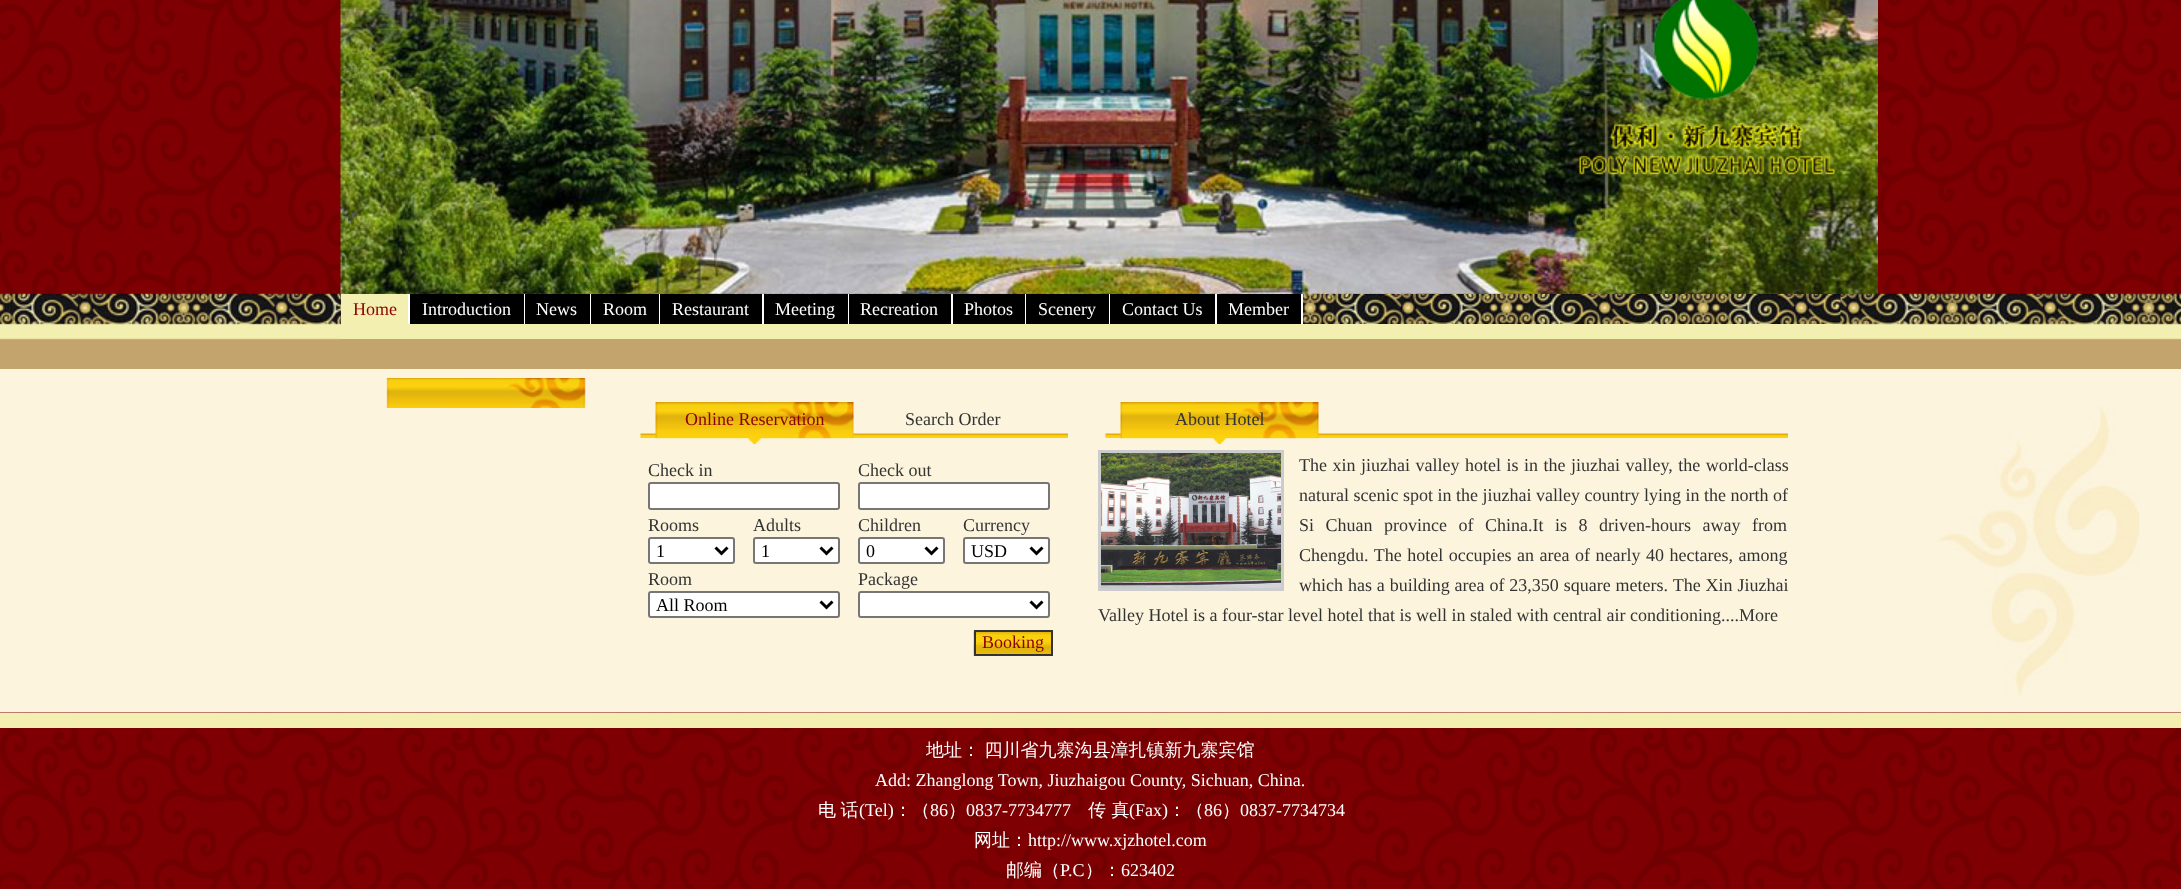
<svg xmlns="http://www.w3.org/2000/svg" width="2181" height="889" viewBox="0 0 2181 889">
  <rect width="100%" height="100%" fill="#fff"/>
  <image x="0" y="0" width="2181" height="295" href="img/1.png"/>
  <image x="340" y="0" width="1538" height="295" href="img/3.png"/>
  <image x="0" y="293" width="2181" height="76" href="img/2.png"/>
  <image x="1579" y="0" width="256" height="175" href="img/4.png"/>
  <image x="340" y="294" width="1501" height="30" href="img/5.png"/>
  <path d="M341 294h67v30H341z" fill="#f3efb0"/>
  <path d="M408 294h2v30H408z" fill="#fff"/>
  <path d="M410 294h114v30H410z" fill="#000"/>
  <path d="M524 294h1v30H524z" fill="#fff"/>
  <path d="M525 294h65v30H525z" fill="#000"/>
  <path d="M590 294h1v30H590z" fill="#fff"/>
  <path d="M591 294h68v30H591z" fill="#000"/>
  <path d="M659 294h1v30H659z" fill="#fff"/>
  <path d="M660 294h102v30H660z" fill="#000"/>
  <path d="M762 294h2v30H762z" fill="#fff"/>
  <path d="M764 294h84v30H764z" fill="#000"/>
  <path d="M848 294h1v30H848z" fill="#fff"/>
  <path d="M849 294h102v30H849z" fill="#000"/>
  <path d="M951 294h2v30H951z" fill="#fff"/>
  <path d="M953 294h72v30H953z" fill="#000"/>
  <path d="M1025 294h1v30H1025z" fill="#fff"/>
  <path d="M1026 294h83v30H1026z" fill="#000"/>
  <path d="M1109 294h1v30H1109z" fill="#fff"/>
  <path d="M1110 294h105v30H1110z" fill="#000"/>
  <path d="M1215 294h2v30H1215z" fill="#fff"/>
  <path d="M1217 294h84v30H1217z" fill="#000"/>
  <path d="M1301 294h2v30H1301z" fill="#fff"/>
  <path d="M341 339h1500v1H341z" fill="#c3a46d"/>
  <path d="M341 324h1500v15H341z" fill="#f3efb0"/>
  <path d="M0 369h2181v344H0z" fill="#fcf4dd"/>
  <image x="1936" y="406" width="204" height="291" href="img/6.png"/>
  <image x="386" y="378" width="200" height="30" href="img/7.png"/>
  <image x="640" y="433" width="428" height="5" href="img/8.png"/>
  <image x="655" y="402" width="199" height="42" href="img/9.png"/>
  <rect x="649" y="483" width="190" height="26" rx="2" fill="#fff" stroke="#767676" stroke-width="2"/>
  <rect x="859" y="483" width="190" height="26" rx="2" fill="#fff" stroke="#767676" stroke-width="2"/>
  <rect x="649" y="538" width="85" height="25" rx="2" fill="#fff" stroke="#767676" stroke-width="2"/>
  <path d="M715.5 547.5L721.5 553.5L727.5 547.5" fill="none" stroke="#000" stroke-width="3"/>
  <rect x="754" y="538" width="85" height="25" rx="2" fill="#fff" stroke="#767676" stroke-width="2"/>
  <path d="M820.5 547.5L826.5 553.5L832.5 547.5" fill="none" stroke="#000" stroke-width="3"/>
  <rect x="859" y="538" width="85" height="25" rx="2" fill="#fff" stroke="#767676" stroke-width="2"/>
  <path d="M925.5 547.5L931.5 553.5L937.5 547.5" fill="none" stroke="#000" stroke-width="3"/>
  <rect x="964" y="538" width="85" height="25" rx="2" fill="#fff" stroke="#767676" stroke-width="2"/>
  <path d="M1030.5 547.5L1036.5 553.5L1042.5 547.5" fill="none" stroke="#000" stroke-width="3"/>
  <rect x="649" y="592" width="190" height="25" rx="2" fill="#fff" stroke="#767676" stroke-width="2"/>
  <path d="M820.5 601.5L826.5 607.5L832.5 601.5" fill="none" stroke="#000" stroke-width="3"/>
  <rect x="859" y="592" width="190" height="25" rx="2" fill="#fff" stroke="#767676" stroke-width="2"/>
  <path d="M1030.5 601.5L1036.5 607.5L1042.5 601.5" fill="none" stroke="#000" stroke-width="3"/>
  <image x="973" y="631" width="78" height="25" href="img/10.png"/>
  <path d="M975 631h77v24H975z" fill="none" stroke="#333" stroke-width="2"/>
  <image x="1105" y="433" width="683" height="5" href="img/11.png"/>
  <image x="1120" y="402" width="199" height="42" href="img/12.png"/>
  <path d="M1099.5 451.5h183v138H1099.5z" fill="none" stroke="#ccc" stroke-width="3"/>
  <image x="1101" y="453" width="180" height="135" href="img/13.png"/>
  <image x="0" y="712" width="2181" height="177" href="img/14.png"/>
  <path d="M0 713h2181v15H0z" fill="#f3efb0"/>
  <text x="353" y="315" font-family="Liberation Serif" font-size="18" fill="#8d0000">Home</text>
  <g font-family="Liberation Serif" font-size="18" fill="#fff">
    <text x="422" y="315">Introduction</text>
    <text x="536" y="315">News</text>
    <text x="603" y="315">Room</text>
    <text x="672" y="315">Restaurant</text>
    <text x="775" y="315">Meeting</text>
    <text x="860" y="315">Recreation</text>
    <text x="964" y="315">Photos</text>
    <text x="1038" y="315">Scenery</text>
    <text x="1122" y="315">Contact Us</text>
    <text x="1228" y="315">Member</text>
  </g>
  <text x="685" y="425" font-family="Liberation Serif" font-size="18" fill="#8d0000">Online Reservation</text>
  <g font-family="Liberation Serif" font-size="18" fill="#333">
    <text x="905" y="425">Search Order</text>
    <text x="648" y="476">Check in</text>
    <text x="858" y="476">Check out</text>
    <text x="648" y="531">Rooms</text>
  </g>
  <text x="656" y="557" font-family="Liberation Serif" font-size="18" fill="#000">1</text>
  <text x="753" y="531" font-family="Liberation Serif" font-size="18" fill="#333">Adults</text>
  <text x="761" y="557" font-family="Liberation Serif" font-size="18" fill="#000">1</text>
  <text x="858" y="531" font-family="Liberation Serif" font-size="18" fill="#333">Children</text>
  <text x="866" y="557" font-family="Liberation Serif" font-size="18" fill="#000">0</text>
  <text x="963" y="531" font-family="Liberation Serif" font-size="18" fill="#333">Currency</text>
  <text x="971" y="557" font-family="Liberation Serif" font-size="18" fill="#000">USD</text>
  <text x="648" y="585" font-family="Liberation Serif" font-size="18" fill="#333">Room</text>
  <text x="656" y="611" font-family="Liberation Serif" font-size="18" fill="#000">All Room</text>
  <text x="858" y="585" font-family="Liberation Serif" font-size="18" fill="#333">Package</text>
  <text x="982" y="648" font-family="Liberation Serif" font-size="18" fill="#8d0000">Booking</text>
  <g font-family="Liberation Serif" font-size="18" fill="#333">
    <text x="1175" y="425">About Hotel</text>
    <text x="1299" y="471" word-spacing="1">The xin jiuzhai valley hotel is in the jiuzhai valley, the world-class</text>
    <text x="1299" y="501">natural scenic spot in the jiuzhai valley country lying in the north of</text>
    <text x="1299" y="531" word-spacing="7">Si Chuan province of China.It is 8 driven-hours away from</text>
    <text x="1299" y="561" word-spacing="1">Chengdu. The hotel occupies an area of nearly 40 hectares, among</text>
    <text x="1299" y="591" word-spacing="0.4">which has a building area of 23,350 square meters. The Xin Jiuzhai</text>
    <text x="1098" y="621">Valley Hotel is a four-star level hotel that is well in staled with central air conditioning....More</text>
  </g>
  <text x="926" y="756" word-spacing="-1" font-family="WenQuanYi Zen Hei" font-size="18" font-weight="500" fill="#fff">地址： 四川省九寨沟县漳扎镇新九寨宾馆</text>
  <text x="875" y="786" font-family="Liberation Serif" font-size="18" fill="#fff">Add: Zhanglong Town, Jiuzhaigou County, Sichuan, China.</text>
  <text x="818" y="816" word-spacing="-1" font-family="WenQuanYi Zen Hei" font-size="18" font-weight="500" fill="#fff">电 话</text>
  <text x="859" y="816" font-family="Liberation Serif" font-size="18" fill="#fff">(Tel)</text>
  <text x="894" y="816" font-family="WenQuanYi Zen Hei" font-size="18" font-weight="500" fill="#fff">：（</text>
  <text x="930" y="816" font-family="Liberation Serif" font-size="18" fill="#fff">86</text>
  <text x="948" y="816" font-family="WenQuanYi Zen Hei" font-size="18" font-weight="500" fill="#fff">）</text>
  <text x="966" y="816" font-family="Liberation Serif" font-size="18" fill="#fff">0837-7734777</text>
  <text x="1088" y="816" font-family="WenQuanYi Zen Hei" font-size="18" font-weight="500" fill="#fff">传 真</text>
  <text x="1129" y="816" font-family="Liberation Serif" font-size="18" fill="#fff">(Fax)</text>
  <text x="1168" y="816" font-family="WenQuanYi Zen Hei" font-size="18" font-weight="500" fill="#fff">：（</text>
  <text x="1204" y="816" font-family="Liberation Serif" font-size="18" fill="#fff">86</text>
  <text x="1222" y="816" font-family="WenQuanYi Zen Hei" font-size="18" font-weight="500" fill="#fff">）</text>
  <text x="1240" y="816" font-family="Liberation Serif" font-size="18" fill="#fff">0837-7734734</text>
  <text x="974" y="846" font-family="WenQuanYi Zen Hei" font-size="18" font-weight="500" fill="#fff">网址：</text>
  <text x="1028" y="846" font-family="Liberation Serif" font-size="18" fill="#fff">http://www.xjzhotel.com</text>
  <text x="1006" y="876" font-family="WenQuanYi Zen Hei" font-size="18" font-weight="500" fill="#fff">邮编（</text>
  <text x="1060" y="876" font-family="Liberation Serif" font-size="18" fill="#fff">P.C</text>
  <text x="1085" y="876" font-family="WenQuanYi Zen Hei" font-size="18" font-weight="500" fill="#fff">）：</text>
  <text x="1121" y="876" font-family="Liberation Serif" font-size="18" fill="#fff">623402</text>
</svg>
